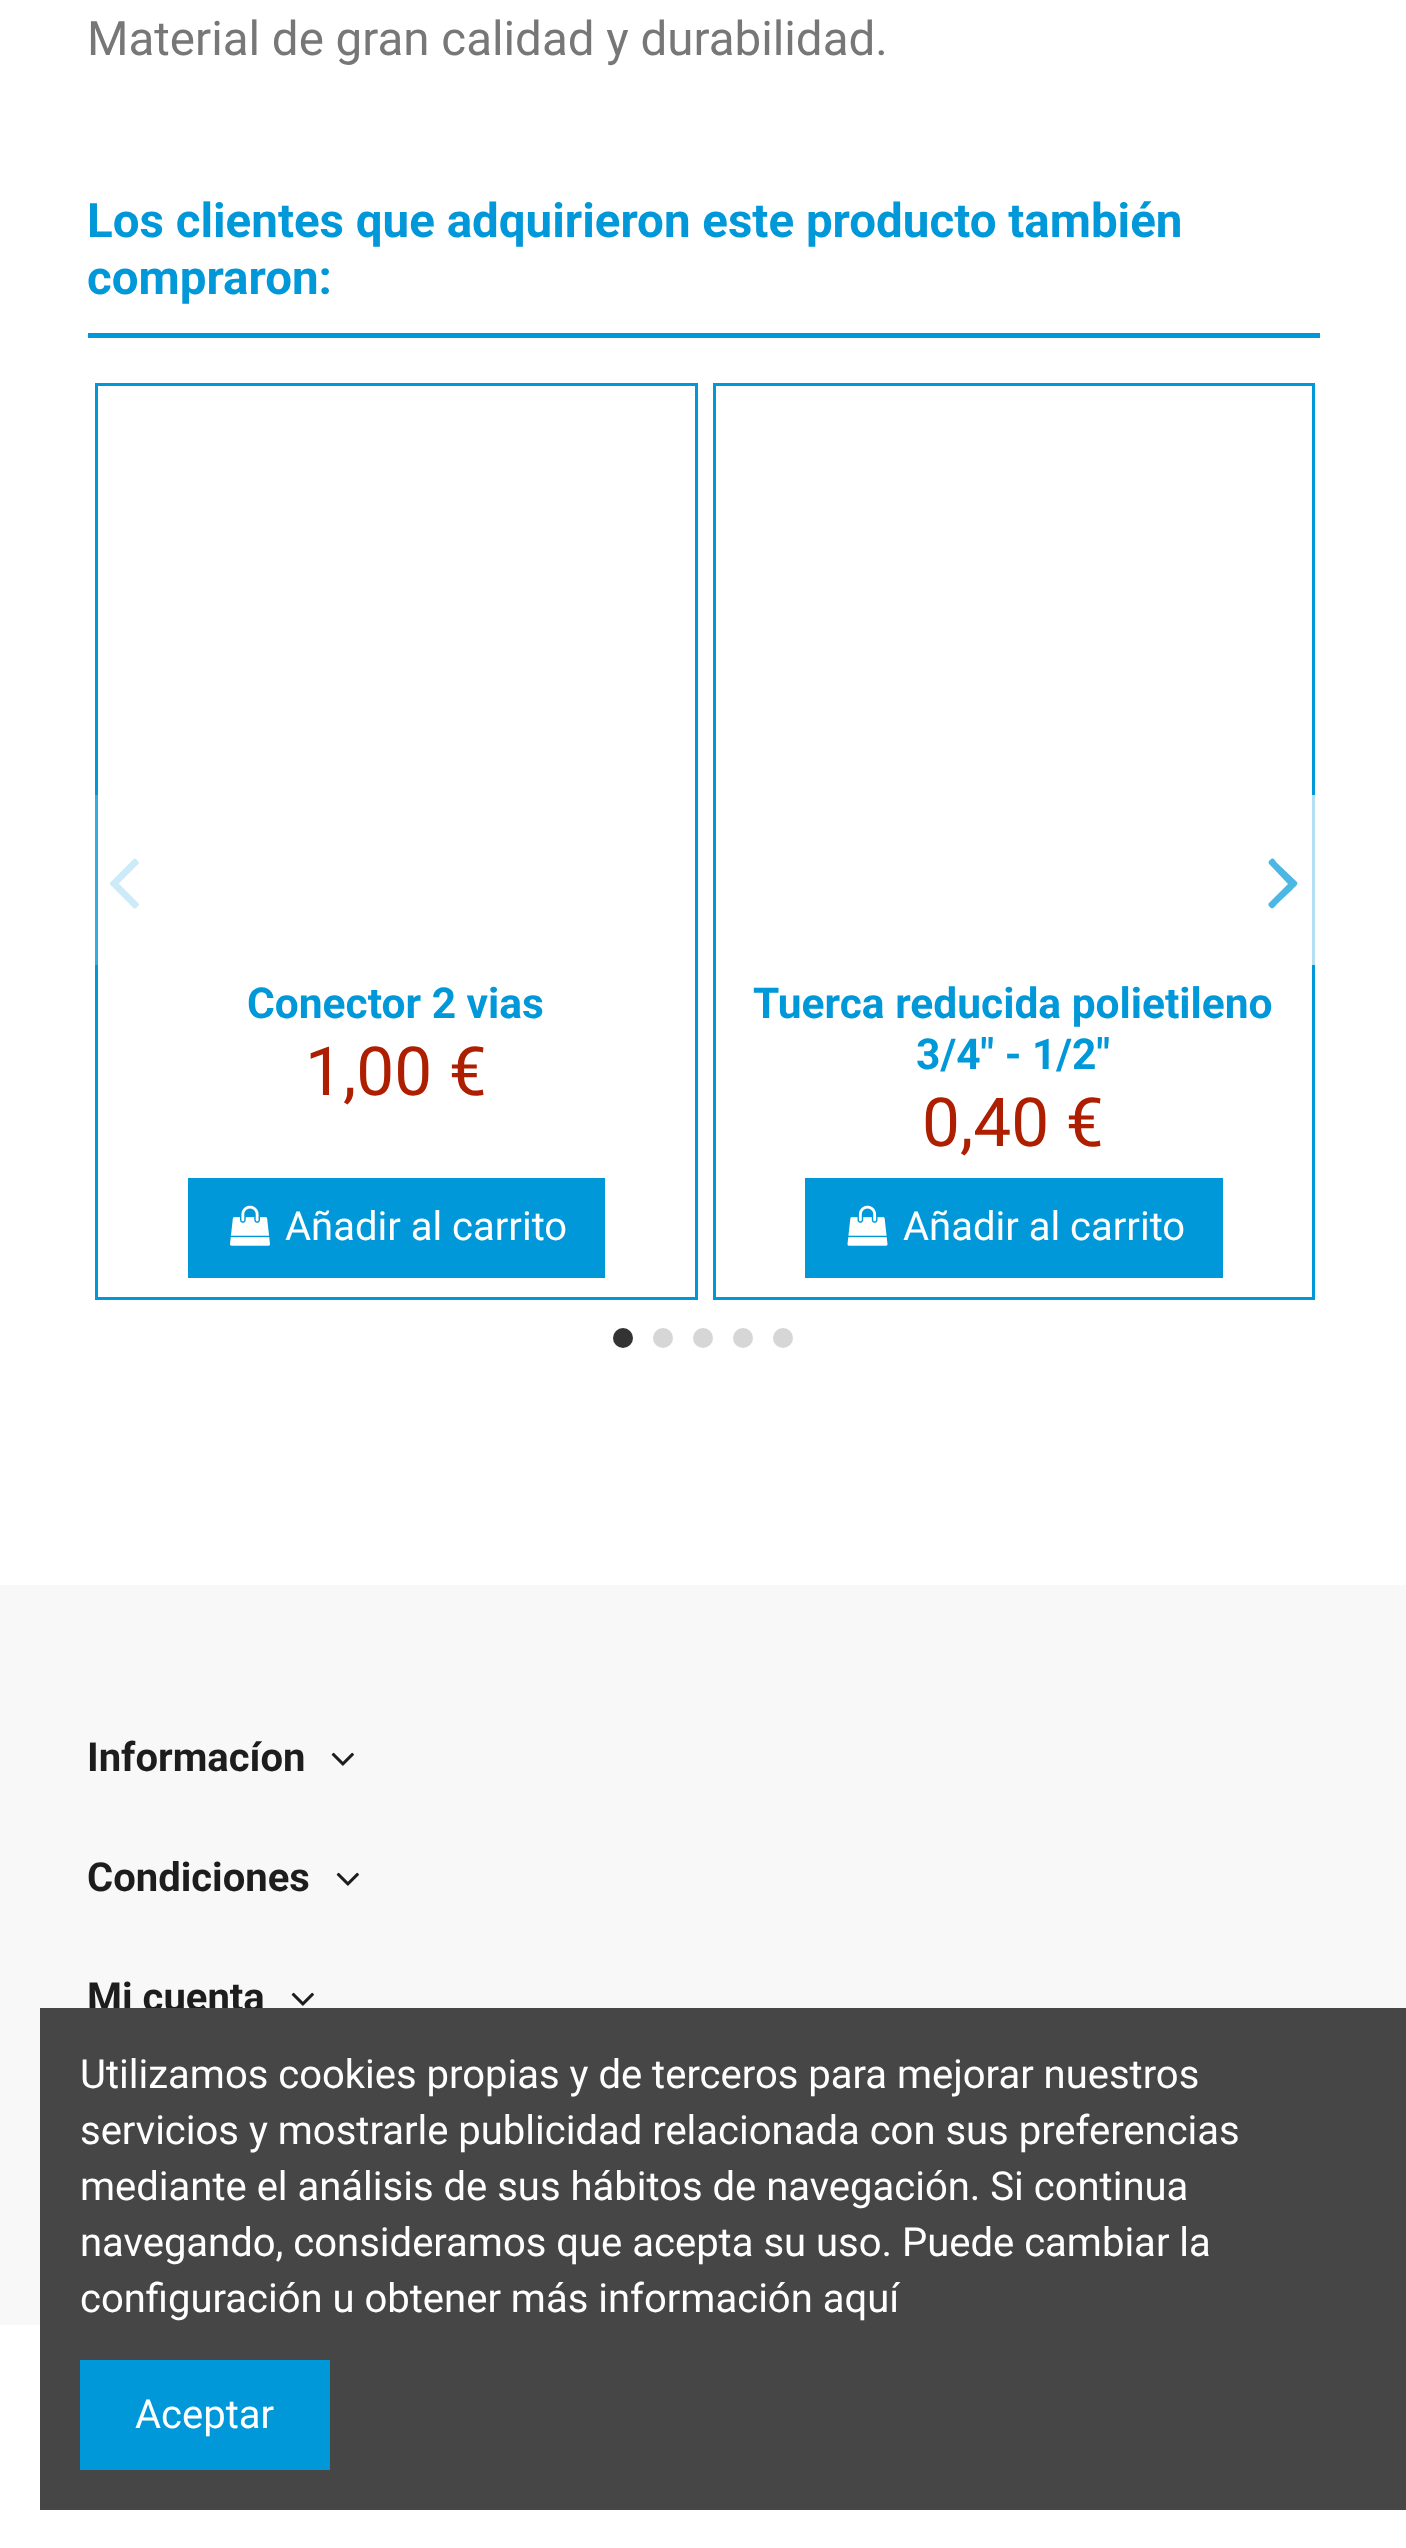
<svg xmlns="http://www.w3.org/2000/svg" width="1406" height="2548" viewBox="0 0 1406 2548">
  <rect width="100%" height="100%" fill="#fff"/>
  <path d="M88 333h1232v5H88z" fill="#0098d8"/>
  <path d="M96.5 384.5h600v914H96.5z" fill="none" stroke="#0098d8" stroke-width="3"/>
  <path d="M95 795h3v170H95z" fill="#ffffff33"/>
  <image x="109" y="858" width="30" height="51" href="img/1.png"/>
  <path d="M714.5 384.5h599v914H714.5z" fill="none" stroke="#0098d8" stroke-width="3"/>
  <path d="M1312 795h3v170H1312z" fill="#ffffffb3"/>
  <path d="M1297 882C1299 885 1293 888 1293 889L1277 904C1277 904 1273 910 1271 908C1270 907 1267 905 1269 903L1288 884L1272 867C1269 864 1267 863 1270 860C1273 857 1274 859 1277 863Z" fill="#4db7e4"/>
  <path d="M188 1178h417v100H188z" fill="#0098d8"/>
  <image x="230" y="1205" width="40" height="41" href="img/2.png"/>
  <path d="M805 1178h418v100H805z" fill="#0098d8"/>
  <image x="847" y="1205" width="41" height="41" href="img/3.png"/>
  <circle cx="623" cy="1338" r="10" fill="#333"/>
  <circle cx="663" cy="1338" r="10" fill="#d6d6d6"/>
  <circle cx="703" cy="1338" r="10" fill="#d6d6d6"/>
  <circle cx="743" cy="1338" r="10" fill="#d6d6d6"/>
  <circle cx="783" cy="1338" r="10" fill="#d6d6d6"/>
  <path d="M0 1585h1406v740H0z" fill="#f8f8f8"/>
  <image x="331" y="1752" width="23" height="14" href="img/4.png"/>
  <image x="336" y="1872" width="23" height="14" href="img/4.png"/>
  <image x="291" y="1992" width="23" height="14" href="img/4.png"/>
  <text x="87" y="55" font-family="Roboto" font-size="47.5" fill="#777">Material de gran calidad y durabilidad.</text>
  <g font-family="Roboto" font-size="47.5" font-weight="bold" fill="#0098d8">
    <text x="87" y="237">Los clientes que adquirieron este producto también</text>
    <text x="87" y="294">compraron:</text>
  </g>
  <text x="247" y="1018" font-family="Roboto" font-size="42.5" font-weight="bold" fill="#0098d8">Conector 2 vias</text>
  <text x="305" y="1095" font-family="Roboto" font-size="67.5" fill="#ad1f00">1,00 €</text>
  <text x="285" y="1240" font-family="Roboto" font-size="40" fill="#fff">Añadir al carrito</text>
  <g font-family="Roboto" font-size="42.5" font-weight="bold" fill="#0098d8">
    <text x="753" y="1018">Tuerca reducida polietileno</text>
    <text x="916" y="1069">3/4" - 1/2"</text>
  </g>
  <text x="922" y="1146" font-family="Roboto" font-size="67.5" fill="#ad1f00">0,40 €</text>
  <text x="903" y="1240" font-family="Roboto" font-size="40" fill="#fff">Añadir al carrito</text>
  <g font-family="Roboto" font-size="40" font-weight="bold" fill="#1d1d1d">
    <text x="87" y="1771">Informacíon</text>
    <text x="87" y="1891">Condiciones</text>
    <text x="87" y="2011">Mi cuenta</text>
  </g>
  <path d="M40 2008h1366v502H40z" fill="#464646"/>
  <g font-family="Roboto" font-size="40" fill="#fff">
    <text x="80" y="2088">Utilizamos cookies propias y de terceros para mejorar nuestros</text>
    <text x="80" y="2144">servicios y mostrarle publicidad relacionada con sus preferencias</text>
    <text x="80" y="2200">mediante el análisis de sus hábitos de navegación. Si continua</text>
    <text x="80" y="2256">navegando, consideramos que acepta su uso. Puede cambiar la</text>
    <text x="80" y="2312">configuración u obtener más información aquí</text>
  </g>
  <path d="M80 2360h250v110H80z" fill="#0098d8"/>
  <text x="135" y="2428" font-family="Roboto" font-size="40" fill="#fff">Aceptar</text>
</svg>
